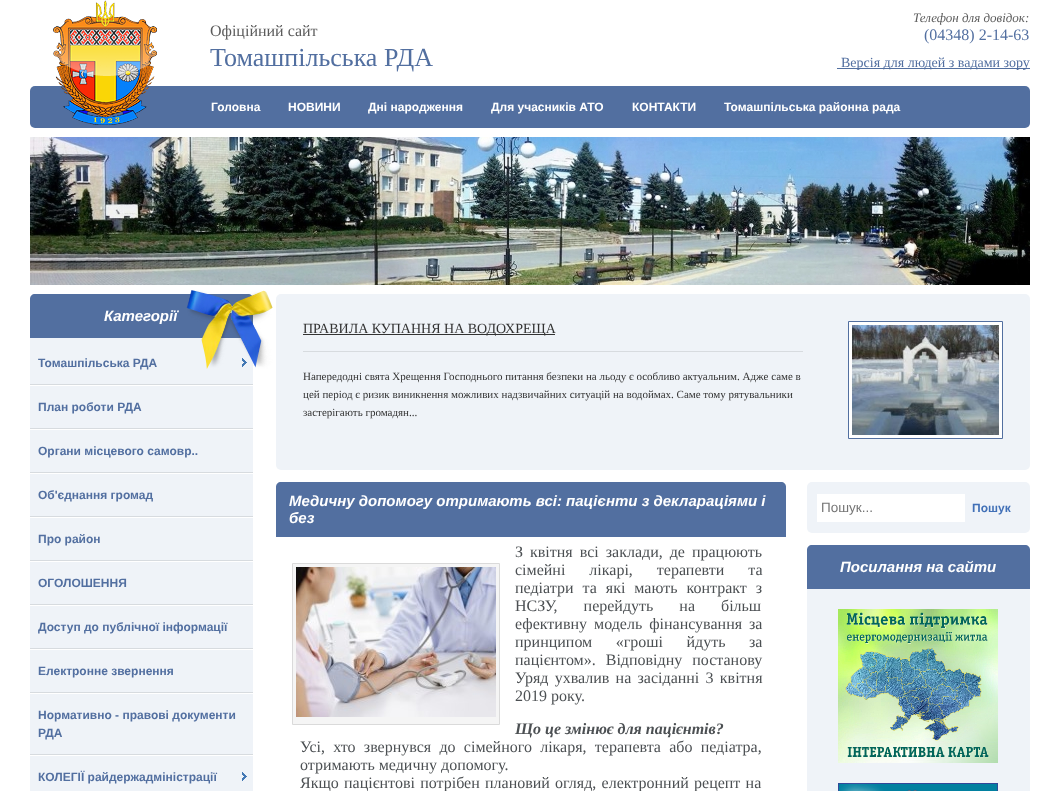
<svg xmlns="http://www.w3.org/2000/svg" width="1059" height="791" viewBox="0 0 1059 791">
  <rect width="100%" height="100%" fill="#fff"/>
  <image x="30" y="90" width="1000" height="34" href="img/1.png"/>
  <rect x="30" y="86" width="1000" height="42" rx="5" fill="#526fa0"/>
  <image x="53" y="0" width="104" height="125" href="img/2.png"/>
  <path d="M837 68h193v1H837z" fill="#526fa0"/>
  <image x="30" y="137" width="1000" height="148" href="img/3.png"/>
  <path d="M35 294H248C251 294 253 296 253 299V338H30V299C30 296 32 294 35 294Z" fill="#526fa0"/>
  <path d="M30 338h223v453H30z" fill="#eff3f8"/>
  <image x="186" y="290" width="87" height="79" href="img/4.png"/>
  <path d="M30 384h223v1H30z" fill="#d7dbdf"/>
  <image x="242" y="358" width="5" height="9" href="img/5.png"/>
  <path d="M30 385h223v1H30z" fill="#fff"/>
  <path d="M30 428h223v1H30z" fill="#d7dbdf"/>
  <path d="M30 429h223v1H30z" fill="#fff"/>
  <path d="M30 472h223v1H30z" fill="#d7dbdf"/>
  <path d="M30 473h223v1H30z" fill="#fff"/>
  <path d="M30 516h223v1H30z" fill="#d7dbdf"/>
  <path d="M30 517h223v1H30z" fill="#fff"/>
  <path d="M30 560h223v1H30z" fill="#d7dbdf"/>
  <path d="M30 561h223v1H30z" fill="#fff"/>
  <path d="M30 604h223v1H30z" fill="#d7dbdf"/>
  <path d="M30 605h223v1H30z" fill="#fff"/>
  <path d="M30 648h223v1H30z" fill="#d7dbdf"/>
  <path d="M30 649h223v1H30z" fill="#fff"/>
  <path d="M30 692h223v1H30z" fill="#d7dbdf"/>
  <path d="M30 693h223v1H30z" fill="#fff"/>
  <path d="M30 754h223v1H30z" fill="#d7dbdf"/>
  <path d="M30 755h223v1H30z" fill="#fff"/>
  <image x="242" y="772" width="5" height="9" href="img/5.png"/>
  <rect x="276" y="294" width="754" height="176" rx="5" fill="#eff3f8"/>
  <path d="M303 351h500v1H303z" fill="#d7dbdf"/>
  <path d="M303 334h252v1H303z" fill="#333"/>
  <path d="M848.5 321.5h154v117H848.5z" fill="#fff" stroke="#526fa0"/>
  <image x="852" y="325" width="147" height="110" href="img/6.png"/>
  <path d="M281 482H781C784 482 786 484 786 487V537H276V487C276 484 278 482 281 482Z" fill="#526fa0"/>
  <path d="M292.5 563.5h207v161H292.5z" fill="#f5f5f5" stroke="#dadada"/>
  <image x="296" y="567" width="200" height="150" href="img/7.png"/>
  <rect x="807" y="482" width="223" height="51" rx="5" fill="#eff3f8"/>
  <path d="M817 494h148v28H817z" fill="#fff"/>
  <path d="M812 545H1025C1028 545 1030 547 1030 550V589H807V550C807 547 809 545 812 545Z" fill="#526fa0"/>
  <path d="M807 589h223v202H807z" fill="#eff3f8"/>
  <image x="838" y="609" width="160" height="154" href="img/8.png"/>
  <image x="838" y="783" width="160" height="8" href="img/9.png"/>
  <text x="210" y="36" font-family="Liberation Serif" font-size="16" fill="#5c5c5c">Офіційний сайт</text>
  <text x="210" y="66" font-family="Liberation Serif" font-size="26" fill="#526fa0">Томашпільська РДА</text>
  <text x="913" y="22" font-family="Liberation Serif" font-size="13" font-style="italic" fill="#5c5c5c">Телефон для довідок:</text>
  <text x="924" y="40" font-family="Liberation Serif" font-size="16" fill="#526fa0">(04348) 2-14-63</text>
  <text x="841" y="67" font-family="Liberation Serif" font-size="14" fill="#526fa0">Версія для людей з вадами зору</text>
  <g font-family="Liberation Sans" font-size="12" font-weight="bold" fill="#fff">
    <text x="211" y="111">Головна</text>
    <text x="288" y="111">НОВИНИ</text>
    <text x="368" y="111">Дні народження</text>
    <text x="491" y="111">Для учасників АТО</text>
    <text x="632" y="111">КОНТАКТИ</text>
    <text x="724" y="111">Томашпільська районна рада</text>
  </g>
  <text x="104" y="321" font-family="Liberation Sans" font-size="15" font-weight="bold" font-style="italic" fill="#fff">Категорії</text>
  <g font-family="Liberation Sans" font-size="12" font-weight="bold" fill="#526fa0">
    <text x="38" y="367">Томашпільська РДА</text>
    <text x="38" y="411">План роботи РДА</text>
    <text x="38" y="455">Органи місцевого самовр..</text>
    <text x="38" y="499">Об'єднання громад</text>
    <text x="38" y="543">Про район</text>
    <text x="38" y="587">ОГОЛОШЕННЯ</text>
    <text x="38" y="631">Доступ до публічної інформації</text>
    <text x="38" y="675">Електронне звернення</text>
    <text x="38" y="719">Нормативно - правові документи</text>
    <text x="38" y="737">РДА</text>
    <text x="38" y="781">КОЛЕГІЇ райдержадміністрації</text>
  </g>
  <text x="303" y="333" font-family="Liberation Serif" font-size="14" fill="#333">ПРАВИЛА КУПАННЯ НА ВОДОХРЕЩА</text>
  <g font-family="Liberation Serif" font-size="11" fill="#333">
    <text x="303" y="380">Напередодні свята Хрещення Господнього питання безпеки на льоду є особливо актуальним. Адже саме в</text>
    <text x="303" y="398">цей період є ризик виникнення можливих надзвичайних ситуацій на водоймах. Саме тому рятувальники</text>
    <text x="303" y="416">застерігають громадян...</text>
  </g>
  <g font-family="Liberation Sans" font-size="15" font-weight="bold" font-style="italic" fill="#fff">
    <text x="289" y="506">Медичну допомогу отримають всі: пацієнти з деклараціями і</text>
    <text x="289" y="523">без</text>
  </g>
  <g font-family="Liberation Serif" font-size="16" fill="#4c5053">
    <text x="515" y="557" word-spacing="3">З квітня всі заклади, де працюють</text>
    <text x="515" y="575" word-spacing="20">сімейні лікарі, терапевти та</text>
    <text x="515" y="593" word-spacing="5">педіатри та які мають контракт з</text>
    <text x="515" y="611" word-spacing="22">НСЗУ, перейдуть на більш</text>
    <text x="515" y="629" word-spacing="3">ефективну модель фінансування за</text>
    <text x="515" y="647" word-spacing="19.5">принципом «гроші йдуть за</text>
    <text x="515" y="665" word-spacing="6">пацієнтом». Відповідну постанову</text>
    <text x="515" y="683" word-spacing="2.25">Уряд ухвалив на засіданні 3 квітня</text>
    <text x="515" y="701">2019 року.</text>
  </g>
  <text x="515" y="734" font-family="Liberation Serif" font-size="16" font-weight="bold" font-style="italic" fill="#4c5053">Що це змінює для пацієнтів?</text>
  <g font-family="Liberation Serif" font-size="16" fill="#4c5053">
    <text x="300" y="752" word-spacing="4.25">Усі, хто звернувся до сімейного лікаря, терапевта або педіатра,</text>
    <text x="300" y="770">отримають медичну допомогу.</text>
    <text x="300" y="788" word-spacing="1.25">Якщо пацієнтові потрібен плановий огляд, електронний рецепт на</text>
  </g>
  <text x="821" y="512" font-family="Liberation Sans" font-size="13.5" fill="#757575">Пошук...</text>
  <text x="972" y="512" font-family="Liberation Sans" font-size="12" font-weight="bold" fill="#4170b7">Пошук</text>
  <text x="840" y="572" font-family="Liberation Sans" font-size="15" font-weight="bold" font-style="italic" fill="#fff">Посилання на сайти</text>
</svg>
